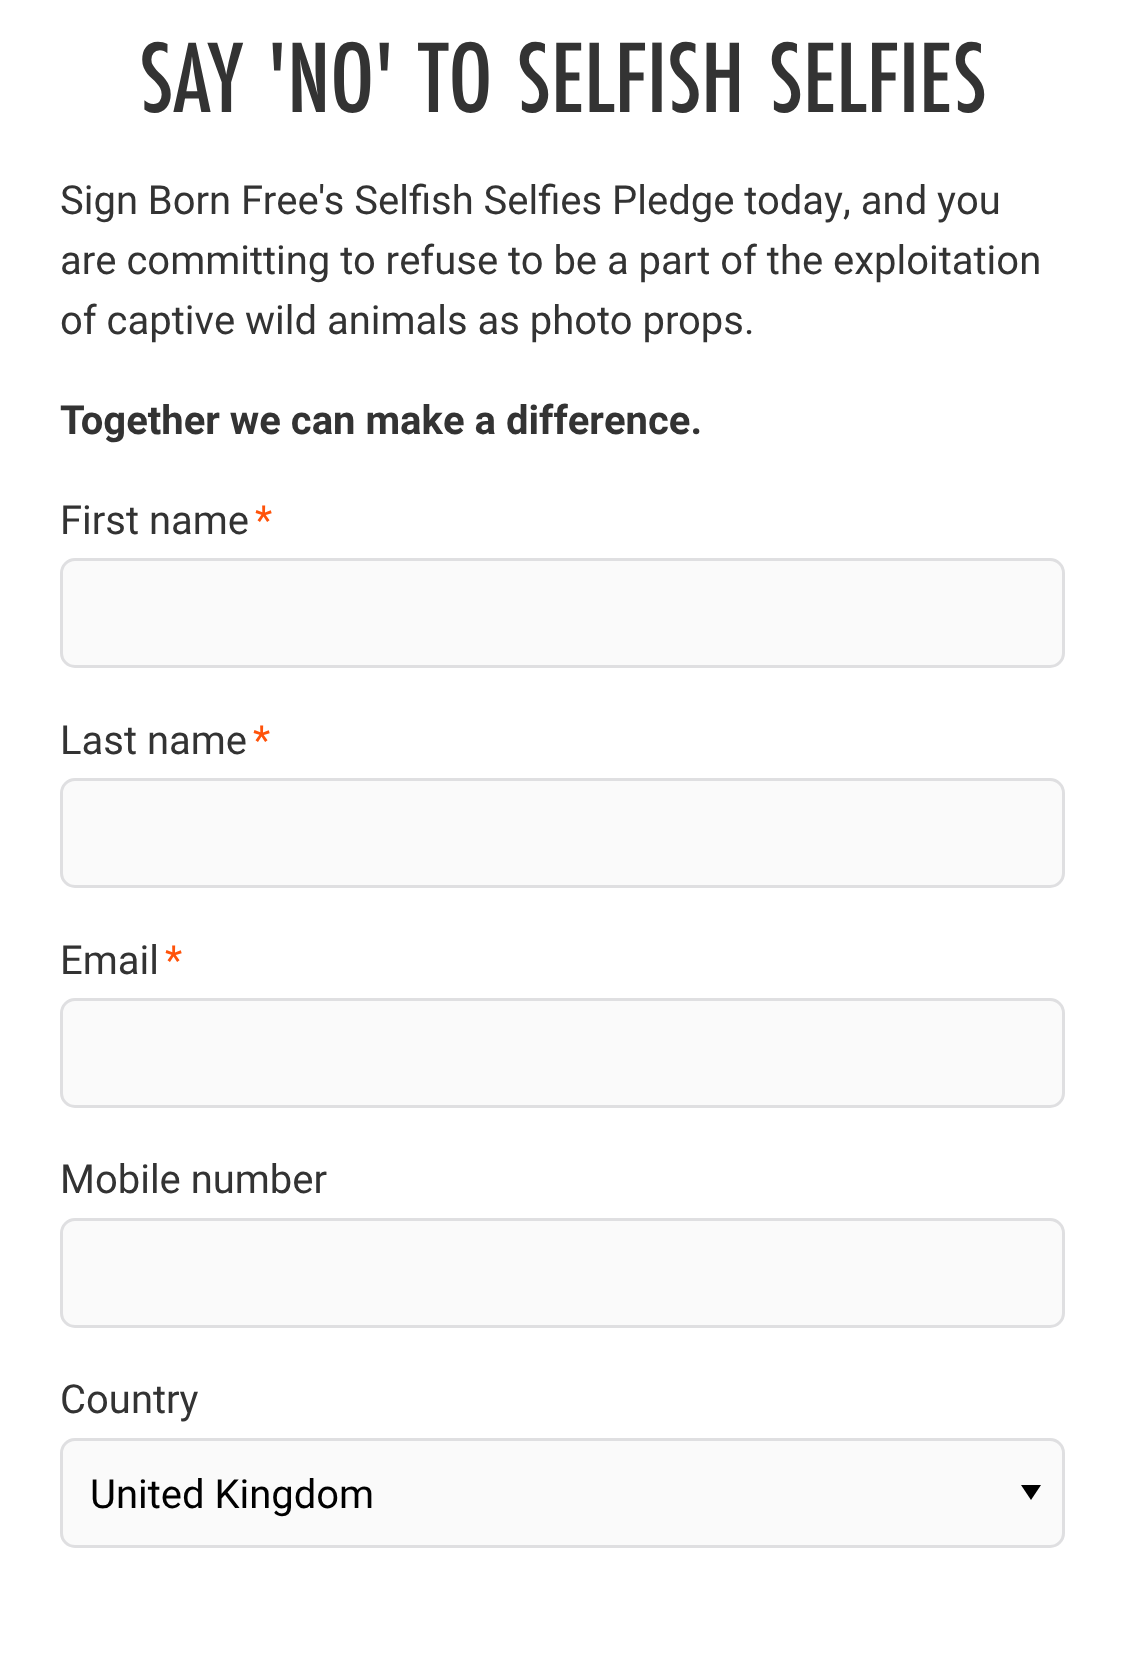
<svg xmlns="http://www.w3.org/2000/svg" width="1124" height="1654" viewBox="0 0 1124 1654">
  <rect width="100%" height="100%" fill="#fff"/>
  <rect x="61.5" y="559.5" width="1002" height="107" rx="13.5" fill="#fafafa" stroke="#dfdfe1" stroke-width="3"/>
  <rect x="61.5" y="779.5" width="1002" height="107" rx="13.5" fill="#fafafa" stroke="#dfdfe1" stroke-width="3"/>
  <rect x="61.5" y="999.5" width="1002" height="107" rx="13.5" fill="#fafafa" stroke="#dfdfe1" stroke-width="3"/>
  <rect x="61.5" y="1219.5" width="1002" height="107" rx="13.5" fill="#fafafa" stroke="#dfdfe1" stroke-width="3"/>
  <rect x="60" y="1438" width="1005" height="110" rx="15" fill="#fafafa"/>
  <path d="M1021 1485H1041L1031 1500Z" fill="#000"/>
  <rect x="61.5" y="1439.5" width="1002" height="107" rx="13.5" fill="none" stroke="#dfdfe1" stroke-width="3"/>
  <text x="139" y="112" font-family="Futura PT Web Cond" font-size="104" font-weight="500" fill="#333">SAY 'NO' TO SELFISH SELFIES</text>
  <g font-family="Roboto" font-size="40" fill="#333">
    <text x="60" y="214">Sign Born Free's Selfish Selfies Pledge today, and you</text>
    <text x="60" y="274">are committing to refuse to be a part of the exploitation</text>
    <text x="60" y="334">of captive wild animals as photo props.</text>
  </g>
  <text x="60" y="434" font-family="Roboto" font-size="40" font-weight="bold" fill="#333">Together we can make a difference.</text>
  <text x="60" y="534" font-family="Roboto" font-size="40" fill="#333">First name</text>
  <text x="255" y="534" font-family="Roboto" font-size="40" fill="#ff530a">*</text>
  <text x="60" y="754" font-family="Roboto" font-size="40" fill="#333">Last name</text>
  <text x="253" y="754" font-family="Roboto" font-size="40" fill="#ff530a">*</text>
  <text x="60" y="974" font-family="Roboto" font-size="40" fill="#333">Email</text>
  <text x="165" y="974" font-family="Roboto" font-size="40" fill="#ff530a">*</text>
  <g font-family="Roboto" font-size="40" fill="#333">
    <text x="60" y="1193">Mobile number</text>
    <text x="60" y="1413">Country</text>
  </g>
  <text x="90" y="1508" font-family="Roboto" font-size="40" fill="#000">United Kingdom</text>
</svg>
